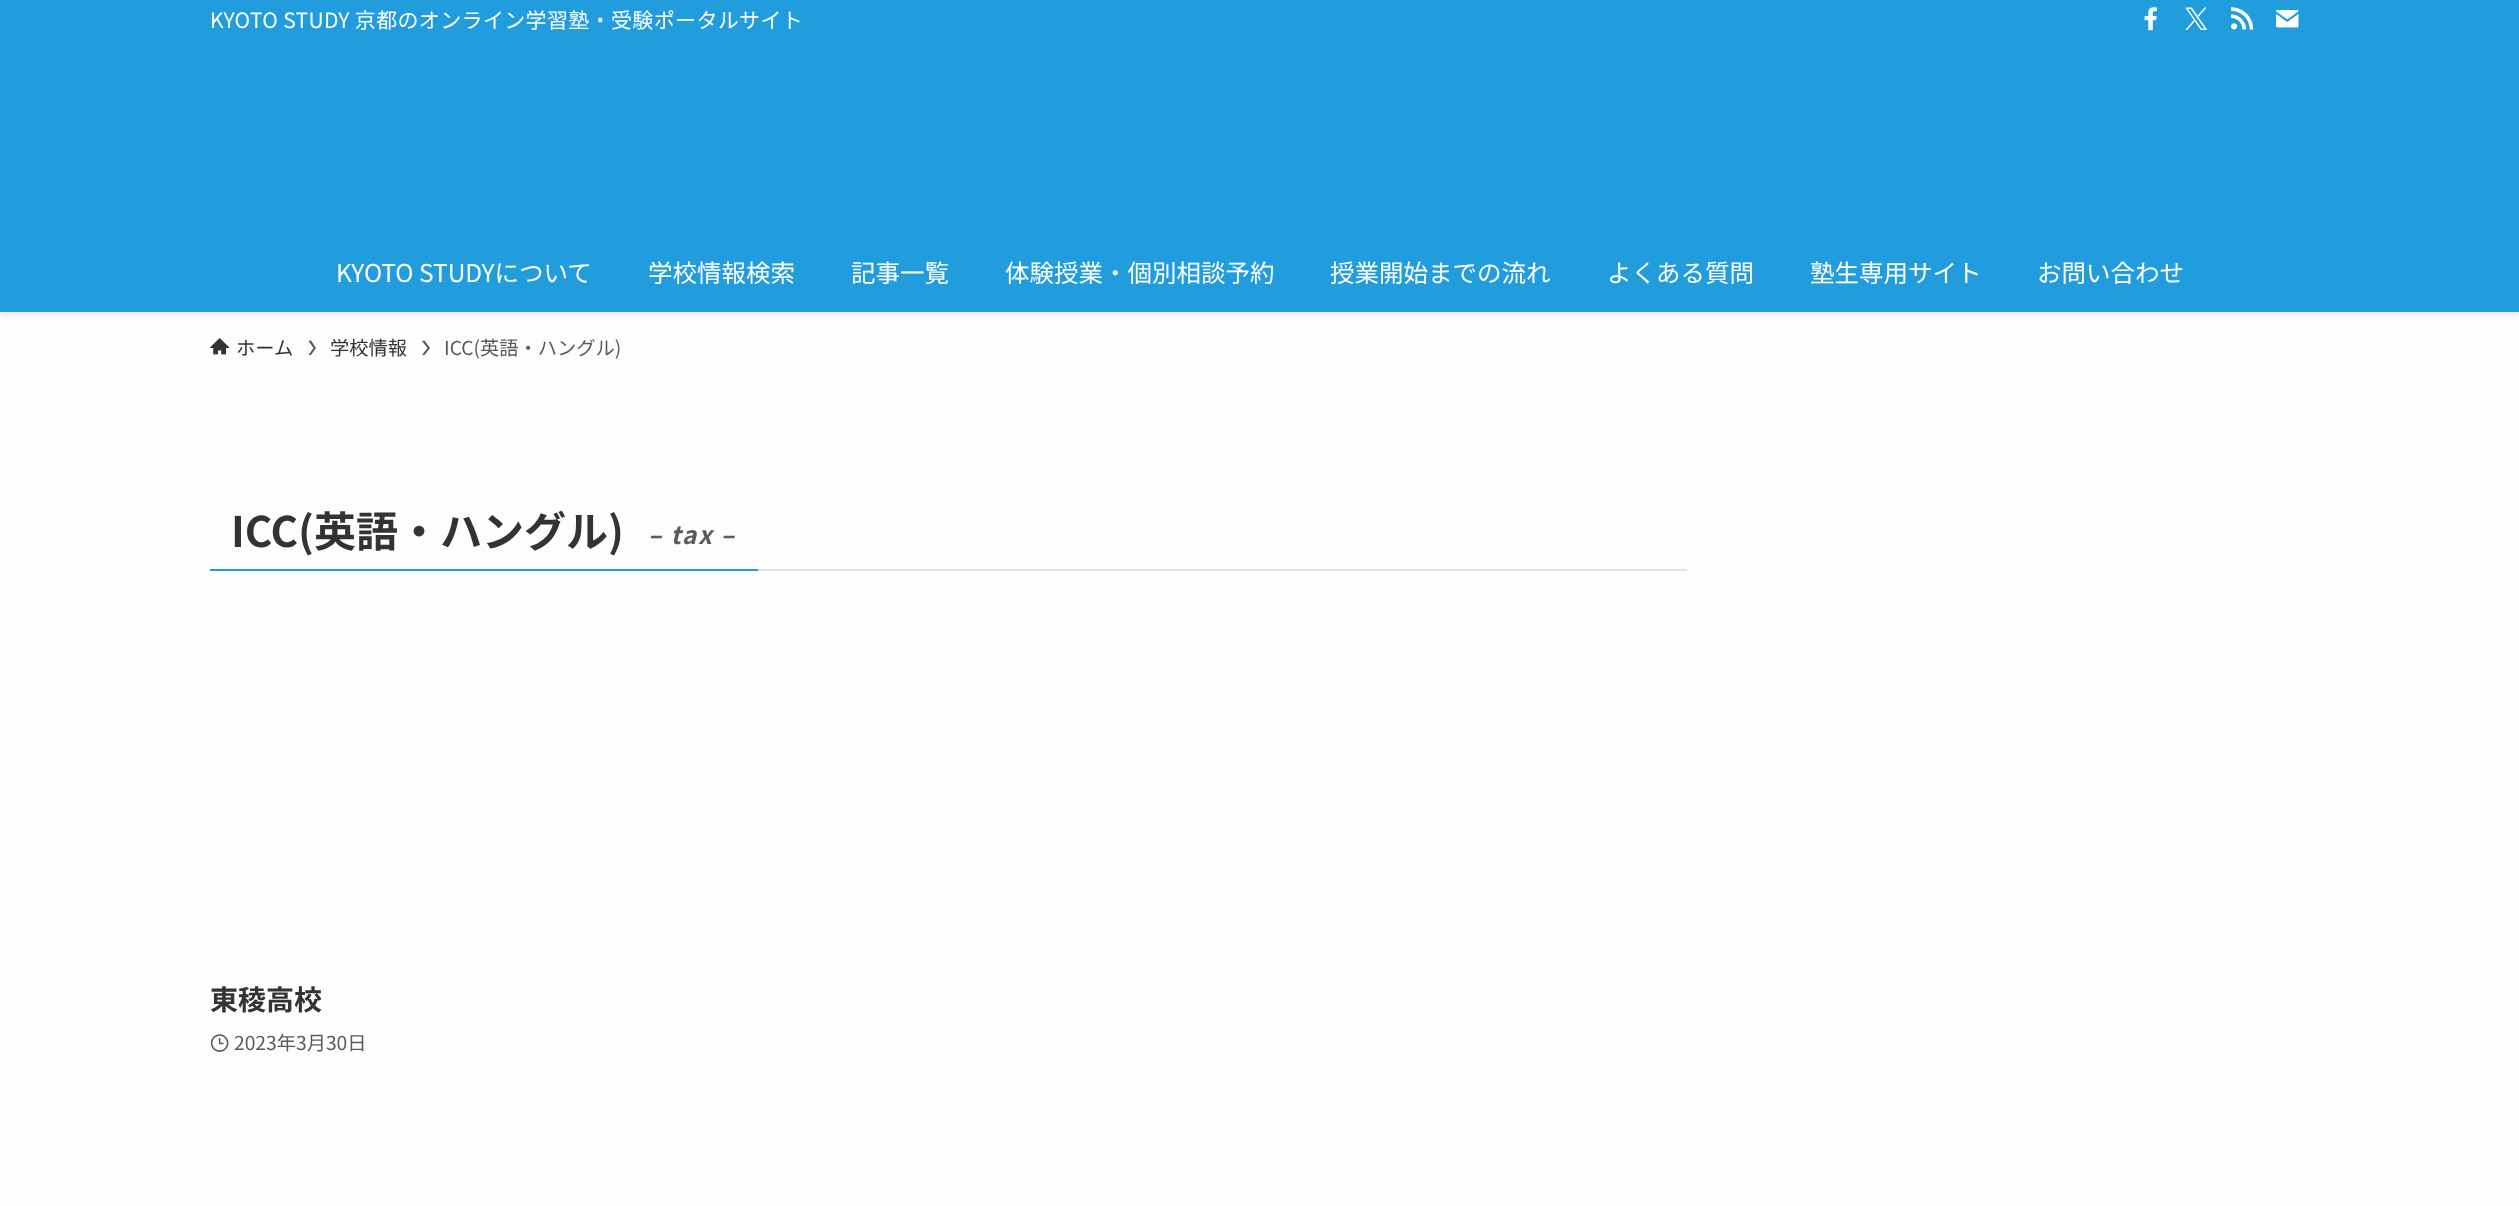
<svg xmlns="http://www.w3.org/2000/svg" width="2519" height="1206" viewBox="0 0 2519 1206">
  <rect width="100%" height="100%" fill="#fdfdfd"/>
  <path d="M0 2h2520v311H0z" fill="#0000001f" filter="blur(3.5px)"/>
  <path d="M0 0h2519v312H0z" fill="#219ddd"/>
  <image x="2144" y="7" width="13" height="24" href="img/1.png"/>
  <image x="2185" y="7" width="23" height="23" href="img/2.png"/>
  <image x="2231" y="7" width="23" height="23" href="img/3.png"/>
  <image x="2276" y="10" width="23" height="18" href="img/4.png"/>
  <image x="210" y="338" width="20" height="17" href="img/5.png"/>
  <path d="M311 340.5L308.5 341L313.5 348L308.5 355H311L316 348Z" fill="#5b5b5b"/>
  <path d="M424.5 340.5L422 341L427.5 348L422 355H424.5L430 348Z" fill="#5b5b5b"/>
  <path d="M758 569h929v2H758z" fill="#e2e2e2"/>
  <path d="M210 569h548v2H210z" fill="#219ddd"/>
  <image x="210" y="1034" width="19" height="18" href="img/6.png"/>
  <text x="210" y="28" font-family="Noto Sans JP" font-size="21" letter-spacing="0.35" fill="#fff">KYOTO STUDY 京都のオンライン学習塾・受験ポータルサイト</text>
  <g font-family="Noto Sans JP" font-size="24.5" fill="#fff">
    <text x="336" y="282">KYOTO STUDYについて</text>
    <text x="648" y="282">学校情報検索</text>
    <text x="851" y="282">記事一覧</text>
    <text x="1005" y="282">体験授業・個別相談予約</text>
    <text x="1330" y="282">授業開始までの流れ</text>
    <text x="1607" y="282">よくある質問</text>
    <text x="1810" y="282">塾生専用サイト</text>
    <text x="2037" y="282">お問い合わせ</text>
  </g>
  <g font-family="Noto Sans JP" font-size="19.25" fill="#333">
    <text x="236" y="355">ホーム</text>
    <text x="330" y="355">学校情報</text>
  </g>
  <text x="444" y="355" font-family="Noto Sans JP" font-size="19.25" fill="#5b5b5b">ICC(英語・ハングル)</text>
  <text x="231" y="547" font-family="Noto Sans JP" font-size="42" font-weight="bold" fill="#333">ICC(英語・ハングル)</text>
  <text x="648" y="544" font-family="Noto Sans JP" font-size="24.5" font-weight="bold" font-style="italic" letter-spacing="1.75" fill="#5b5b5b">– tax –</text>
  <text x="210" y="1010" font-family="Noto Sans JP" font-size="28" font-weight="bold" fill="#333">東稜高校</text>
  <text x="234" y="1050" font-family="Noto Sans JP" font-size="19.25" fill="#5b5b5b">2023年3月30日</text>
</svg>
